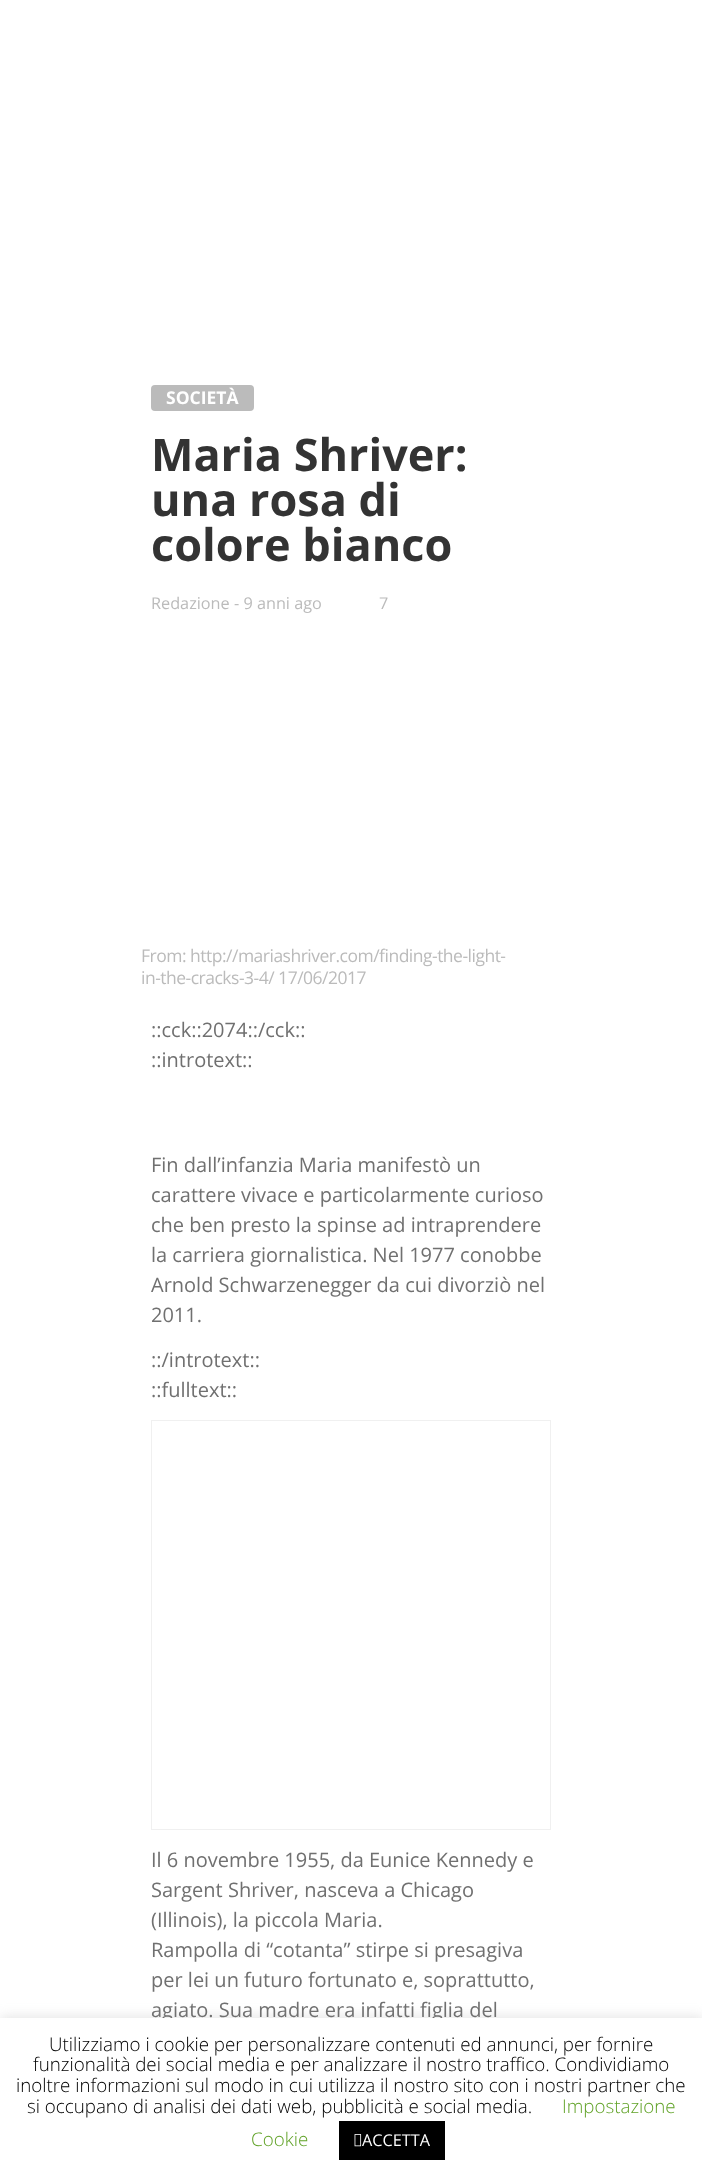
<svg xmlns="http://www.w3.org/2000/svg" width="702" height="2181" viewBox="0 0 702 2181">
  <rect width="100%" height="100%" fill="#fff"/>
  <rect x="151" y="385" width="103" height="26" rx="4" fill="#bbb"/>
  <path d="M151 1420h400v1H151z" fill="#f0f0f0"/>
  <path d="M550 1420h1v410H550z" fill="#f0f0f0"/>
  <path d="M151 1829h400v1H151z" fill="#f0f0f0"/>
  <path d="M151 1420h1v410H151z" fill="#f0f0f0"/>
  <path d="M0 2016h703v164H0z" fill="#acabab4d" filter="blur(6px)"/>
  <text x="166" y="404" font-family="Open Sans" font-size="17.5" font-weight="bold" fill="#fff">SOCIETÀ</text>
  <g font-family="Open Sans" font-size="45" font-weight="bold" fill="#333">
    <text x="151" y="471">Maria Shriver:</text>
    <text x="151" y="516">una rosa di</text>
    <text x="151" y="561">colore bianco</text>
  </g>
  <g font-family="Open Sans" font-size="16.25" fill="#bbb">
    <text x="151" y="609">Redazione - 9 anni ago</text>
    <text x="379" y="609">7</text>
  </g>
  <g font-family="Open Sans" font-size="17.5" letter-spacing="-0.5" fill="#bbb">
    <text x="141" y="962">From: http://mariashriver.com/finding-the-light-</text>
    <text x="141" y="984">in-the-cracks-3-4/ 17/06/2017</text>
  </g>
  <g font-family="Open Sans" font-size="20" fill="#707070">
    <text x="151" y="1037">::cck::2074::/cck::</text>
    <text x="151" y="1067">::introtext::</text>
    <text x="151" y="1172">Fin dall’infanzia Maria manifestò un</text>
    <text x="151" y="1202">carattere vivace e particolarmente curioso</text>
    <text x="151" y="1232">che ben presto la spinse ad intraprendere</text>
    <text x="151" y="1262">la carriera giornalistica. Nel 1977 conobbe</text>
    <text x="151" y="1292">Arnold Schwarzenegger da cui divorziò nel</text>
    <text x="151" y="1322">2011.</text>
    <text x="151" y="1367">::/introtext::</text>
    <text x="151" y="1397">::fulltext::</text>
    <text x="151" y="1867">Il 6 novembre 1955, da Eunice Kennedy e</text>
    <text x="151" y="1897">Sargent Shriver, nasceva a Chicago</text>
    <text x="151" y="1927">(Illinois), la piccola Maria.</text>
    <text x="151" y="1957">Rampolla di “cotanta” stirpe si presagiva</text>
    <text x="151" y="1987">per lei un futuro fortunato e, soprattutto,</text>
    <text x="151" y="2017">agiato. Sua madre era infatti figlia del</text>
  </g>
  <path d="M0 2018h702v163H0z" fill="#fff"/>
  <g font-family="Open Sans" font-size="18.75" font-weight="300" fill="#000">
    <text x="49" y="2051">Utilizziamo i cookie per personalizzare contenuti ed annunci, per fornire</text>
    <text x="33" y="2071">funzionalità dei social media e per analizzare il nostro traffico. Condividiamo</text>
    <text x="16" y="2092">inoltre informazioni sul modo in cui utilizza il nostro sito con i nostri partner che</text>
    <text x="27" y="2113">si occupano di analisi dei dati web, pubblicità e social media.</text>
  </g>
  <g font-family="Open Sans" font-size="18.75" font-weight="300" fill="#62a329">
    <text x="562" y="2113">Impostazione</text>
    <text x="251" y="2146">Cookie</text>
  </g>
  <path d="M339 2121h106v39H339z" fill="#000"/>
  <image x="354" y="2134" width="8" height="13" href="img/1.png"/>
  <text x="362" y="2146" font-family="Open Sans" font-size="16.25" fill="#fff">ACCETTA</text>
</svg>
